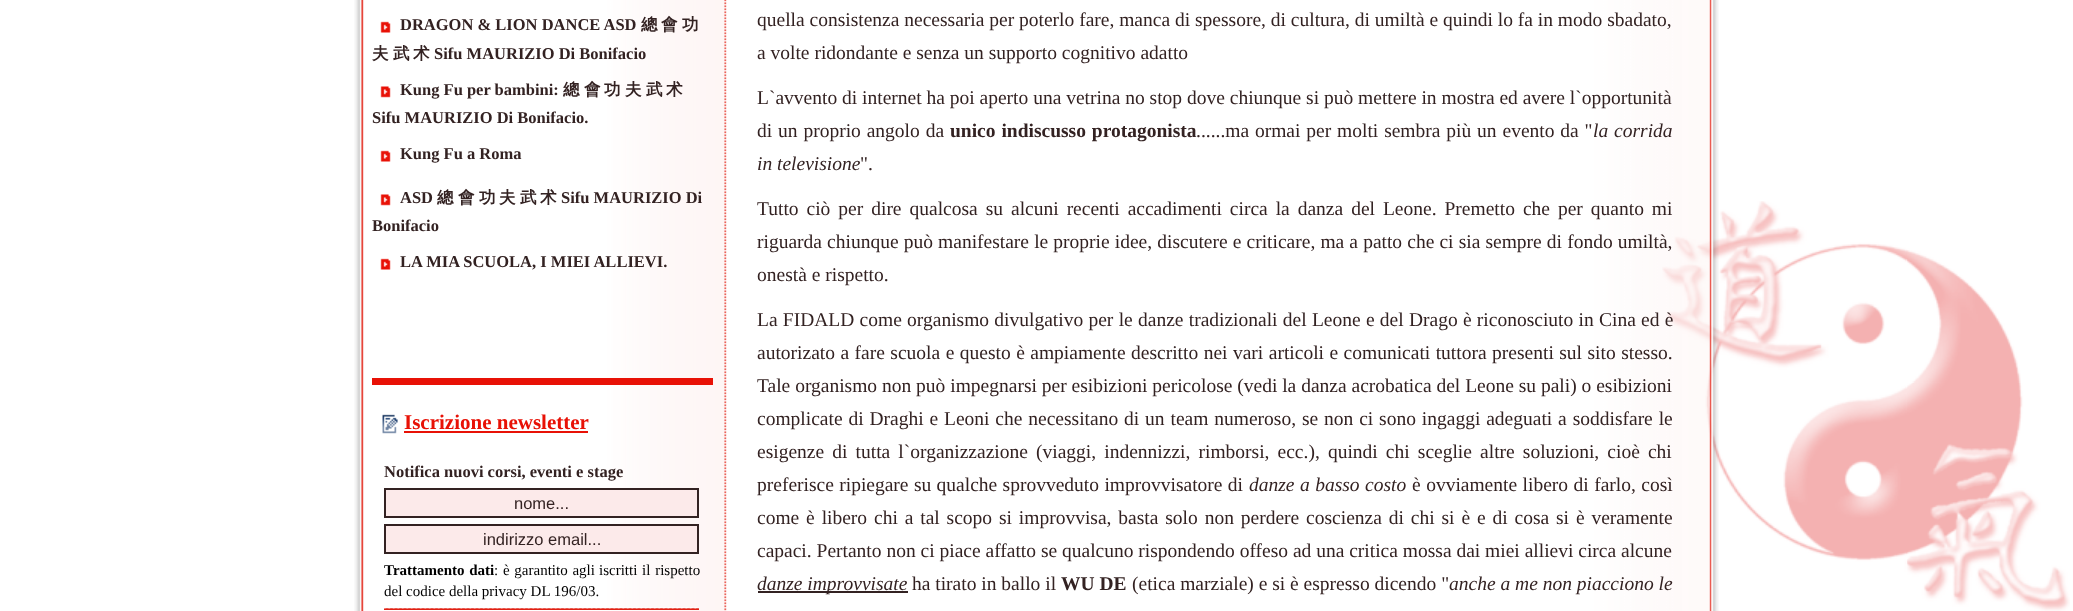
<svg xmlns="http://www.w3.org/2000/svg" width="2073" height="611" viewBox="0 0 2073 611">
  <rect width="100%" height="100%" fill="#fff"/>
  <image x="1662" y="201" width="408" height="410" href="img/1.png"/>
  <image x="354" y="0" width="7" height="611" href="img/2.png"/>
  <image x="361" y="0" width="1351" height="611" href="img/3.png"/>
  <image x="380" y="21" width="11" height="12" href="img/4.png"/>
  <image x="380" y="86" width="11" height="12" href="img/5.png"/>
  <image x="380" y="150" width="11" height="12" href="img/4.png"/>
  <image x="380" y="194" width="11" height="12" href="img/5.png"/>
  <image x="380" y="258" width="11" height="12" href="img/4.png"/>
  <path d="M372 378h341v3H372z" fill="#e81106"/>
  <path d="M372 381h341v4H372z" fill="#e81106"/>
  <image x="382" y="414" width="16" height="20" href="img/6.png"/>
  <path d="M404 431h184v2H404z" fill="#e81106"/>
  <path d="M385 489h313v28H385z" fill="#fceaea" stroke="#322" stroke-width="2"/>
  <path d="M385 525h313v28H385z" fill="#fceaea" stroke="#322" stroke-width="2"/>
  <path d="M384 608h315v2H384z" fill="#e02013"/>
  <image x="384" y="607" width="315" height="2" href="img/7.png"/>
  <path d="M758 591h150v2H758z" fill="#322"/>
  <image x="1711" y="0" width="8" height="611" href="img/8.png"/>
  <text x="400" y="30" font-family="Liberation Serif" font-size="16.5" font-weight="bold" fill="#322">DRAGON &amp; LION DANCE ASD</text>
  <g font-family="WenQuanYi Zen Hei" font-size="16.5" font-weight="bold" fill="#322">
    <text x="641" y="30">總</text>
    <text x="661" y="30">會</text>
    <text x="682" y="30">功</text>
    <text x="372" y="59">夫</text>
    <text x="393" y="59">武</text>
    <text x="413" y="59">术</text>
  </g>
  <g font-family="Liberation Serif" font-size="16.5" font-weight="bold" fill="#322">
    <text x="434" y="59">Sifu MAURIZIO Di Bonifacio</text>
    <text x="400" y="95">Kung Fu per bambini:</text>
  </g>
  <g font-family="WenQuanYi Zen Hei" font-size="16.5" font-weight="bold" fill="#322">
    <text x="563" y="95">總</text>
    <text x="584" y="95">會</text>
    <text x="604" y="95">功</text>
    <text x="625" y="95">夫</text>
    <text x="646" y="95">武</text>
    <text x="666" y="95">术</text>
  </g>
  <g font-family="Liberation Serif" font-size="16.5" font-weight="bold" fill="#322">
    <text x="372" y="123">Sifu MAURIZIO Di Bonifacio.</text>
    <text x="400" y="159">Kung Fu a Roma</text>
    <text x="400" y="203">ASD</text>
  </g>
  <g font-family="WenQuanYi Zen Hei" font-size="16.5" font-weight="bold" fill="#322">
    <text x="437" y="203">總</text>
    <text x="458" y="203">會</text>
    <text x="479" y="203">功</text>
    <text x="499" y="203">夫</text>
    <text x="520" y="203">武</text>
    <text x="540" y="203">术</text>
  </g>
  <g font-family="Liberation Serif" font-size="16.5" font-weight="bold" fill="#322">
    <text x="561" y="203">Sifu MAURIZIO Di</text>
    <text x="372" y="231">Bonifacio</text>
    <text x="400" y="267">LA MIA SCUOLA, I MIEI ALLIEVI.</text>
  </g>
  <text x="404" y="429" font-family="Liberation Serif" font-size="21" font-weight="bold" fill="#e81106">Iscrizione newsletter</text>
  <text x="384" y="477" font-family="Liberation Serif" font-size="16.5" font-weight="bold" fill="#322">Notifica nuovi corsi, eventi e stage</text>
  <g font-family="Liberation Sans" font-size="16.5" fill="#322">
    <text x="514" y="509">nome...</text>
    <text x="483" y="545">indirizzo email...</text>
  </g>
  <text x="384" y="575" word-spacing="1" font-family="Liberation Serif" font-size="15" font-weight="bold" fill="#000">Trattamento dati</text>
  <g font-family="Liberation Serif" font-size="15" fill="#000">
    <text x="494" y="575" word-spacing="1">: è garantito agli</text>
    <text x="599" y="575" word-spacing="1">iscritti il rispetto</text>
    <text x="384" y="596">del codice della privacy DL 196/03.</text>
  </g>
  <g font-family="Liberation Serif" font-size="19.5" fill="#322">
    <text x="757" y="26">quella consistenza necessaria per poterlo fare, manca di spessore, di cultura, di umiltà e quindi lo fa in modo sbadato,</text>
    <text x="757" y="59">a volte ridondante e senza un supporto cognitivo adatto</text>
    <text x="757" y="104">L`avvento di internet ha poi aperto una vetrina no stop dove chiunque si può mettere in mostra ed avere l`opportunità</text>
    <text x="757" y="137" word-spacing="1">di un proprio angolo da</text>
  </g>
  <text x="950" y="137" word-spacing="1" font-family="Liberation Serif" font-size="19.5" font-weight="bold" fill="#322">unico indiscusso protagonista</text>
  <text x="1196" y="137" word-spacing="1" font-family="Liberation Serif" font-size="19.5" fill="#322">......ma ormai per molti sembra più un evento da "</text>
  <g font-family="Liberation Serif" font-size="19.5" font-style="italic" fill="#322">
    <text x="1593" y="137" word-spacing="1">la corrida</text>
    <text x="757" y="170">in televisione</text>
  </g>
  <g font-family="Liberation Serif" font-size="19.5" fill="#322">
    <text x="860" y="170">".</text>
    <text x="757" y="215" word-spacing="3.1">Tutto ciò per dire qualcosa su alcuni recenti accadimenti circa la danza del Leone. Premetto che per quanto mi</text>
    <text x="757" y="248" word-spacing="0.25">riguarda chiunque può manifestare le proprie idee, discutere e criticare, ma a patto che ci sia sempre di fondo umiltà,</text>
    <text x="757" y="281">onestà e rispetto.</text>
    <text x="757" y="326" word-spacing="0.4">La FIDALD come organismo divulgativo per le danze tradizionali del Leone e del Drago è riconosciuto in Cina ed è</text>
    <text x="757" y="359" word-spacing="0.6">autorizato a fare scuola e questo è ampiamente descritto nei vari articoli e comunicati tuttora presenti sul sito stesso.</text>
    <text x="757" y="392">Tale organismo non può impegnarsi per esibizioni pericolose (vedi la danza acrobatica del Leone su pali) o esibizioni</text>
    <text x="757" y="425" word-spacing="1">complicate di Draghi e Leoni che necessitano di un team numeroso, se non ci sono ingaggi adeguati a soddisfare le</text>
    <text x="757" y="458" word-spacing="3.25">esigenze di tutta l`organizzazione (viaggi, indennizzi, rimborsi, ecc.), quindi chi sceglie altre soluzioni, cioè chi</text>
    <text x="757" y="491" word-spacing="0.5">preferisce ripiegare su qualche sprovveduto improvvisatore di</text>
  </g>
  <text x="1249" y="491" word-spacing="0.6" font-family="Liberation Serif" font-size="19.5" font-style="italic" fill="#322">danze a basso costo</text>
  <g font-family="Liberation Serif" font-size="19.5" fill="#322">
    <text x="1412" y="491" word-spacing="0.6">è ovviamente libero di farlo, così</text>
    <text x="757" y="524" word-spacing="2">come è libero chi a tal scopo si improvvisa, basta solo non perdere coscienza di chi si è e di cosa si è veramente</text>
    <text x="757" y="557">capaci. Pertanto non ci piace affatto se qualcuno rispondendo offeso ad una critica mossa dai miei allievi circa alcune</text>
  </g>
  <text x="757" y="590" font-family="Liberation Serif" font-size="19.5" font-style="italic" fill="#322">danze improvvisate</text>
  <text x="912" y="590" font-family="Liberation Serif" font-size="19.5" fill="#322">ha tirato in ballo il</text>
  <text x="1061" y="590" font-family="Liberation Serif" font-size="19.5" font-weight="bold" fill="#322">WU DE</text>
  <text x="1132" y="590" font-family="Liberation Serif" font-size="19.5" fill="#322">(etica marziale) e si è espresso dicendo "</text>
  <text x="1449" y="590" font-family="Liberation Serif" font-size="19.5" font-style="italic" fill="#322">anche a me non piacciono le</text>
</svg>
